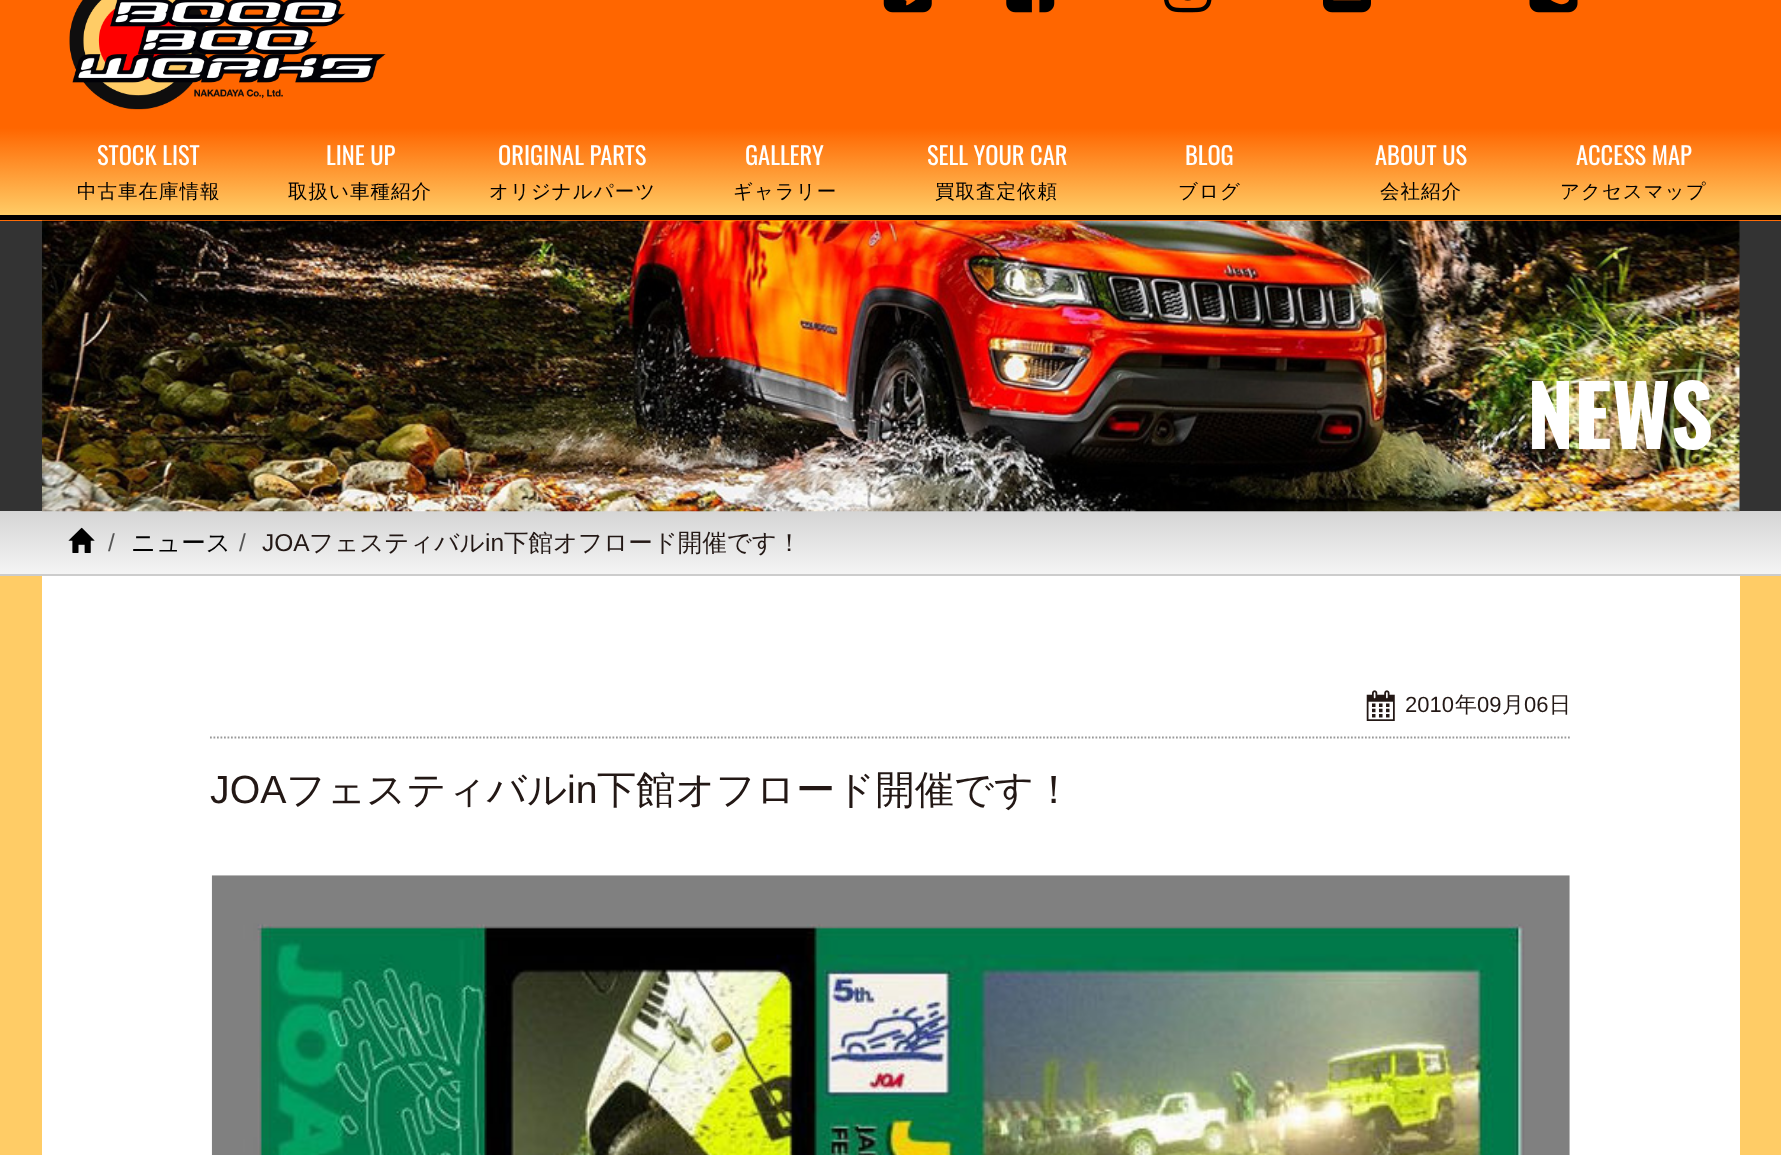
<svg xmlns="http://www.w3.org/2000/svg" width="1781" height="1155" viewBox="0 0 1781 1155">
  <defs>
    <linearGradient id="g1" gradientUnits="userSpaceOnUse" x1="891" y1="128" x2="891" y2="215"><stop offset="0" stop-color="#f60"/><stop offset="1" stop-color="#fc6"/></linearGradient>
    <linearGradient id="g2" gradientUnits="userSpaceOnUse" x1="891" y1="215" x2="891" y2="303"><stop offset="0" stop-color="#f60"/><stop offset="1" stop-color="#fc6"/></linearGradient>
    <linearGradient id="g3" gradientUnits="userSpaceOnUse" x1="891" y1="511" x2="891" y2="574"><stop offset="0" stop-color="#d5d5d5"/><stop offset="1" stop-color="#f4f4f4"/></linearGradient>
  </defs>
  <rect width="100%" height="100%" fill="#fc6"/>
  <path d="M0 0h1781v128H0z" fill="#f60"/>
  <image x="69" y="0" width="317" height="110" href="img/1.png"/>
  <image x="883" y="0" width="49" height="13" href="img/2.png"/>
  <image x="1006" y="0" width="49" height="13" href="img/3.png"/>
  <image x="1164" y="0" width="48" height="13" href="img/4.png"/>
  <image x="1323" y="0" width="48" height="13" href="img/5.png"/>
  <image x="1529" y="0" width="49" height="13" href="img/6.png"/>
  <path d="M0 128h1781v85H0z" fill="url(#g1)"/>
  <path d="M0 220h1781v1H0z" fill="url(#g2)"/>
  <path d="M0 215h1781v5H0z" fill="#000"/>
  <path d="M0 221h1781v290H0z" fill="#333"/>
  <path d="M0 511h1781v63H0z" fill="url(#g3)"/>
  <image x="42" y="220" width="1698" height="292" href="img/7.png"/>
  <path d="M0 574h1781v2H0z" fill="#ccc"/>
  <image x="68" y="527" width="27" height="26" href="img/8.png"/>
  <path d="M42 576h1698v579H42z" fill="#fff"/>
  <path d="M210 737.5H1571.5" fill="none" stroke="#999" stroke-width="1.8" stroke-dasharray="1.75 1.75"/>
  <image x="1366" y="690" width="29" height="31" href="img/9.png"/>
  <image x="211" y="875" width="1359" height="280" href="img/10.png"/>
  <text x="97" y="165" font-family="Oswald" font-size="24.5" fill="#fff">STOCK LIST</text>
  <text x="77" y="198" font-family="WenQuanYi Zen Hei" font-size="19.5" font-weight="500" letter-spacing="1" fill="#000">中古車在庫情報</text>
  <text x="326" y="165" font-family="Oswald" font-size="24.5" fill="#fff">LINE UP</text>
  <text x="288" y="198" font-family="WenQuanYi Zen Hei" font-size="19.5" font-weight="500" letter-spacing="1" fill="#000">取扱い車種紹介</text>
  <text x="498" y="165" font-family="Oswald" font-size="24.5" fill="#fff">ORIGINAL PARTS</text>
  <text x="489" y="198" font-family="WenQuanYi Zen Hei" font-size="19.5" font-weight="500" letter-spacing="1" fill="#000">オリジナルパーツ</text>
  <text x="745" y="165" font-family="Oswald" font-size="24.5" fill="#fff">GALLERY</text>
  <text x="733" y="198" font-family="WenQuanYi Zen Hei" font-size="19.5" font-weight="500" letter-spacing="1" fill="#000">ギャラリー</text>
  <text x="927" y="165" font-family="Oswald" font-size="24.5" fill="#fff">SELL YOUR CAR</text>
  <text x="935" y="198" font-family="WenQuanYi Zen Hei" font-size="19.5" font-weight="500" letter-spacing="1" fill="#000">買取査定依頼</text>
  <text x="1185" y="165" font-family="Oswald" font-size="24.5" fill="#fff">BLOG</text>
  <text x="1178" y="198" font-family="WenQuanYi Zen Hei" font-size="19.5" font-weight="500" letter-spacing="1" fill="#000">ブログ</text>
  <text x="1375" y="165" font-family="Oswald" font-size="24.5" fill="#fff">ABOUT US</text>
  <text x="1380" y="198" font-family="WenQuanYi Zen Hei" font-size="19.5" font-weight="500" letter-spacing="1" fill="#000">会社紹介</text>
  <text x="1576" y="165" font-family="Oswald" font-size="24.5" fill="#fff">ACCESS MAP</text>
  <text x="1560" y="198" font-family="WenQuanYi Zen Hei" font-size="19.5" font-weight="500" letter-spacing="1" fill="#000">アクセスマップ</text>
  <text x="1527" y="449" font-family="Oswald" font-size="84" font-weight="bold" fill="#fff">NEWS</text>
  <text x="108" y="551" font-family="Liberation Sans" font-size="24.5" fill="#555">/</text>
  <text x="131" y="551" font-family="WenQuanYi Zen Hei" font-size="24.5" font-weight="500" fill="#000">ニュース</text>
  <text x="239" y="551" font-family="Liberation Sans" font-size="24.5" fill="#555">/</text>
  <text x="262" y="551" font-family="Liberation Sans" font-size="24.5" fill="#231815">JOA</text>
  <text x="309" y="551" font-family="WenQuanYi Zen Hei" font-size="24.5" font-weight="500" fill="#231815">フェスティバル</text>
  <text x="485" y="551" font-family="Liberation Sans" font-size="24.5" fill="#231815">in</text>
  <text x="504" y="551" font-family="WenQuanYi Zen Hei" font-size="24.5" font-weight="500" fill="#231815">下館オフロード開催です！</text>
  <text x="1405" y="712" font-family="Liberation Sans" font-size="22" fill="#231815">2010</text>
  <text x="1455" y="712" font-family="WenQuanYi Zen Hei" font-size="22" font-weight="500" fill="#231815">年</text>
  <text x="1477" y="712" font-family="Liberation Sans" font-size="22" fill="#231815">09</text>
  <text x="1502" y="712" font-family="WenQuanYi Zen Hei" font-size="22" font-weight="500" fill="#231815">月</text>
  <text x="1524" y="712" font-family="Liberation Sans" font-size="22" fill="#231815">06</text>
  <text x="1549" y="712" font-family="WenQuanYi Zen Hei" font-size="22" font-weight="500" fill="#231815">日</text>
  <text x="210" y="803" font-family="Liberation Sans" font-size="39.25" fill="#231815">JOA</text>
  <text x="286" y="803" font-family="WenQuanYi Zen Hei" font-size="39.25" font-weight="500" fill="#231815">フェスティバル</text>
  <text x="567" y="803" font-family="Liberation Sans" font-size="39.25" fill="#231815">in</text>
  <text x="597" y="803" font-family="WenQuanYi Zen Hei" font-size="39.25" font-weight="500" fill="#231815">下館オフロード開催です！</text>
</svg>
